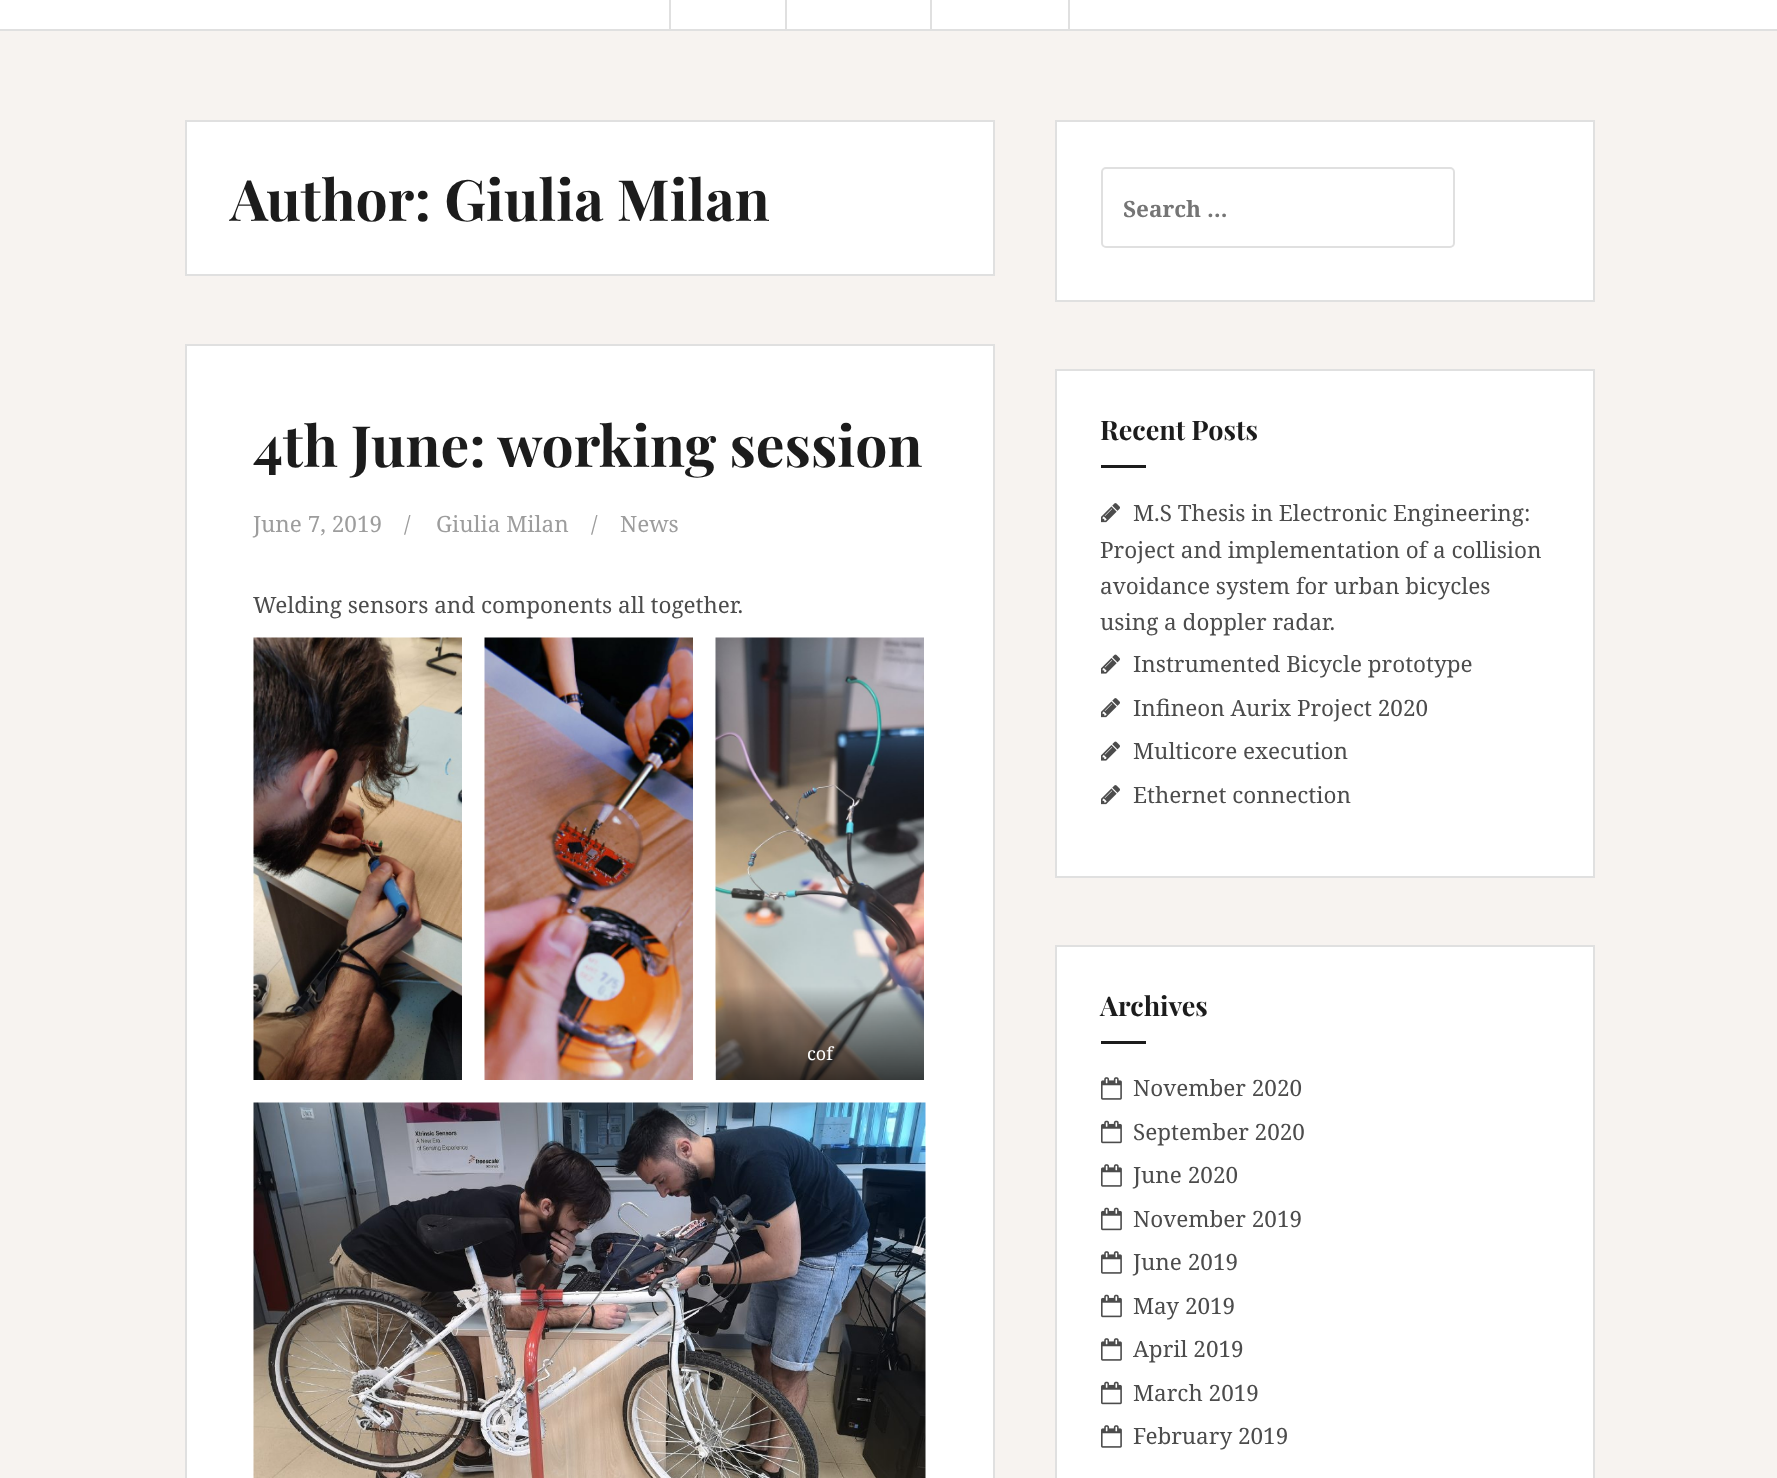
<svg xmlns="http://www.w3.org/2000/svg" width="1777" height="1478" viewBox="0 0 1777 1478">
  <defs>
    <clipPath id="clip1"><path d="M1124 192h303v30H1124z"/></clipPath>
  </defs>
  <rect width="100%" height="100%" fill="#f7f3f0"/>
  <path d="M0 0h1777v29H0z" fill="#fff"/>
  <path d="M0 29h1777v2H0z" fill="#e0e0e0"/>
  <path d="M669 0h2v29H669z" fill="#e0e0e0"/>
  <path d="M785 0h2v29H785z" fill="#e0e0e0"/>
  <path d="M930 0h2v29H930z" fill="#e0e0e0"/>
  <path d="M1068 0h2v29H1068z" fill="#e0e0e0"/>
  <path d="M186 121h808v154H186z" fill="#fff" stroke="#e0e0e0" stroke-width="2"/>
  <path d="M186 345h808v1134H186z" fill="#fff" stroke="#e0e0e0" stroke-width="2"/>
  <image x="253" y="637" width="209" height="443" href="img/1.png"/>
  <image x="484" y="637" width="209" height="443" href="img/2.png"/>
  <image x="715" y="637" width="209" height="443" href="img/3.png"/>
  <image x="253" y="1102" width="673" height="376" href="img/4.png"/>
  <path d="M1056 121h538v180H1056z" fill="#fff" stroke="#e0e0e0" stroke-width="2"/>
  <rect x="1102" y="168" width="352" height="79" rx="4" fill="none" stroke="#e0e0e0" stroke-width="2"/>
  <path d="M1056 370h538v507H1056z" fill="#fff" stroke="#e0e0e0" stroke-width="2"/>
  <path d="M1101 465h45v3H1101z" fill="#1c1c1c"/>
  <image x="1101" y="503" width="19" height="20" href="img/5.png"/>
  <image x="1101" y="654" width="19" height="20" href="img/6.png"/>
  <image x="1101" y="698" width="19" height="20" href="img/5.png"/>
  <image x="1101" y="741" width="19" height="20" href="img/6.png"/>
  <image x="1101" y="785" width="19" height="20" href="img/5.png"/>
  <path d="M1056 946h538v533H1056z" fill="#fff" stroke="#e0e0e0" stroke-width="2"/>
  <path d="M1101 1041h45v3H1101z" fill="#1c1c1c"/>
  <image x="1101" y="1077" width="21" height="23" href="img/7.png"/>
  <image x="1101" y="1120" width="21" height="24" href="img/8.png"/>
  <image x="1101" y="1164" width="21" height="23" href="img/7.png"/>
  <image x="1101" y="1207" width="21" height="24" href="img/8.png"/>
  <image x="1101" y="1251" width="21" height="23" href="img/7.png"/>
  <image x="1101" y="1294" width="21" height="24" href="img/8.png"/>
  <image x="1101" y="1338" width="21" height="23" href="img/7.png"/>
  <image x="1101" y="1381" width="21" height="24" href="img/8.png"/>
  <image x="1101" y="1425" width="21" height="23" href="img/7.png"/>
  <g font-family="Playfair Display" font-size="57" font-weight="bold" fill="#1c1c1c">
    <text x="230" y="221">Author: Giulia Milan</text>
    <text x="253" y="467">4th June: working session</text>
  </g>
  <g font-family="Noto Serif" font-size="22.5" fill="#9d9d9d">
    <text x="253" y="532">June 7, 2019</text>
    <text x="404" y="532">/</text>
    <text x="436" y="532">Giulia Milan</text>
    <text x="591" y="532">/</text>
    <text x="620" y="532">News</text>
  </g>
  <text x="253" y="613" font-family="Noto Serif" font-size="22.5" fill="#4c4c4c">Welding sensors and components all together.</text>
  <text x="807" y="1060" font-family="Noto Serif" font-size="18" fill="#fff">cof</text>
  <g clip-path="url(#clip1)">
    <text x="1123" y="217" font-family="Noto Serif" font-size="22.5" font-weight="bold" fill="#757575">Search …</text>
  </g>
  <text x="1100" y="440" font-family="Playfair Display" font-size="27" font-weight="bold" fill="#1c1c1c">Recent Posts</text>
  <g font-family="Noto Serif" font-size="22.5" fill="#4c4c4c">
    <text x="1133" y="521">M.S Thesis in Electronic Engineering:</text>
    <text x="1100" y="558">Project and implementation of a collision</text>
    <text x="1100" y="594">avoidance system for urban bicycles</text>
    <text x="1100" y="630">using a doppler radar.</text>
    <text x="1133" y="672">Instrumented Bicycle prototype</text>
    <text x="1133" y="716">Infineon Aurix Project 2020</text>
    <text x="1133" y="759">Multicore execution</text>
    <text x="1133" y="803">Ethernet connection</text>
  </g>
  <text x="1100" y="1016" font-family="Playfair Display" font-size="27" font-weight="bold" fill="#1c1c1c">Archives</text>
  <g font-family="Noto Serif" font-size="22.5" fill="#4c4c4c">
    <text x="1133" y="1096">November 2020</text>
    <text x="1133" y="1140">September 2020</text>
    <text x="1133" y="1183">June 2020</text>
    <text x="1133" y="1227">November 2019</text>
    <text x="1133" y="1270">June 2019</text>
    <text x="1133" y="1314">May 2019</text>
    <text x="1133" y="1357">April 2019</text>
    <text x="1133" y="1401">March 2019</text>
    <text x="1133" y="1444">February 2019</text>
  </g>
</svg>
